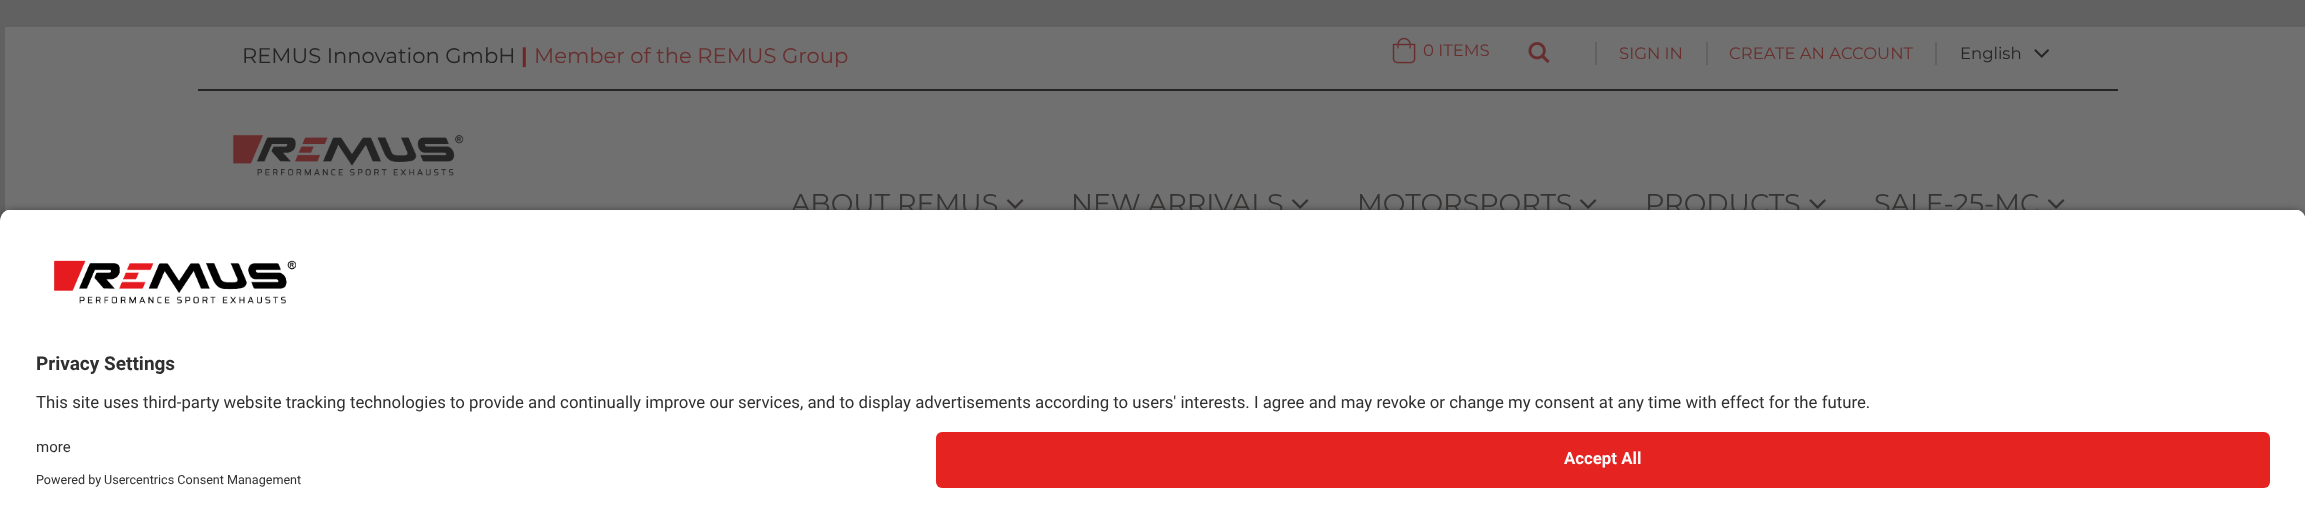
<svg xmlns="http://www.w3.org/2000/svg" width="2305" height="523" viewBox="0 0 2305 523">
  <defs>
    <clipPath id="clip1"><path d="M12 209H2294C2300.5 209 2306 214.5 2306 221V420H0V221C0 214.5 5.5 209 12 209Z"/></clipPath>
  </defs>
  <rect width="100%" height="100%" fill="#616161"/>
  <path d="M5 27h2300v190H5z" fill="#707070"/>
  <path d="M198 89h1920v2H198z" fill="#242424"/>
  <image x="1392" y="37" width="24" height="27" href="img/1.png"/>
  <image x="1528" y="42" width="22" height="22" href="img/2.png"/>
  <path d="M1595 42h2v23H1595z" fill="#616161"/>
  <path d="M1706 42h2v23H1706z" fill="#616161"/>
  <path d="M1935 42h2v23H1935z" fill="#616161"/>
  <image x="2034" y="49" width="15" height="9" href="img/3.png"/>
  <image x="232" y="134" width="232" height="42" href="img/4.png"/>
  <image x="1006" y="199" width="18" height="10" href="img/5.png"/>
  <image x="1291" y="199" width="18" height="10" href="img/5.png"/>
  <image x="1579" y="199" width="18" height="10" href="img/5.png"/>
  <image x="1809" y="199" width="17" height="10" href="img/6.png"/>
  <image x="2047" y="199" width="18" height="10" href="img/5.png"/>
  <rect y="213" width="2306" height="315" rx="12" fill="#000000cc" filter="blur(5px)"/>
  <path d="M0 420h2305v103H0z" fill="#fff"/>
  <rect x="936" y="432" width="1334" height="56" rx="6" fill="#e52421"/>
  <text x="242" y="63" font-family="Montserrat" font-size="21.1" fill="#242424">REMUS Innovation GmbH</text>
  <text x="521" y="63" font-family="Montserrat" font-size="21.1" font-weight="bold" fill="#702424">|</text>
  <text x="534" y="63" font-family="Montserrat" font-size="21.1" fill="#682f2e">Member of the REMUS Group</text>
  <g font-family="Montserrat" font-size="16.5" fill="#682f2e">
    <text x="1423" y="56">0 ITEMS</text>
    <text x="1619" y="59">SIGN IN</text>
    <text x="1729" y="59">CREATE AN ACCOUNT</text>
  </g>
  <text x="1960" y="59" font-family="Montserrat" font-size="16.5" fill="#242424">English</text>
  <g font-family="Montserrat" font-size="27" fill="#363433">
    <text x="791" y="213">ABOUT REMUS</text>
    <text x="1071" y="213">NEW ARRIVALS</text>
    <text x="1357" y="213">MOTORSPORTS</text>
    <text x="1645" y="213">PRODUCTS</text>
    <text x="1874" y="213">SALE-25-MC</text>
  </g>
  <g clip-path="url(#clip1)">
    <path d="M0 210h2305v210H0z" fill="#fff"/>
  </g>
  <image x="54" y="260" width="242" height="44" href="img/7.png"/>
  <text x="36" y="370" font-family="Roboto" font-size="19" font-weight="bold" fill="#303030">Privacy Settings</text>
  <text x="36" y="408" font-family="Roboto" font-size="16.8" fill="#303030">This site uses third-party website tracking technologies to provide and continually improve our services, and to display advertisements according to users' interests. I agree and may revoke or change my consent at any time with effect for the future.</text>
  <text x="36" y="452" font-family="Roboto" font-size="15" fill="#303030">more</text>
  <g font-family="Roboto" font-size="12.6" fill="#303030">
    <text x="36" y="484">Powered by</text>
    <text x="104" y="484">Usercentrics Consent Management</text>
  </g>
  <text x="1564" y="464" font-family="Roboto" font-size="16.8" font-weight="bold" fill="#fafafa">Accept All</text>
</svg>
